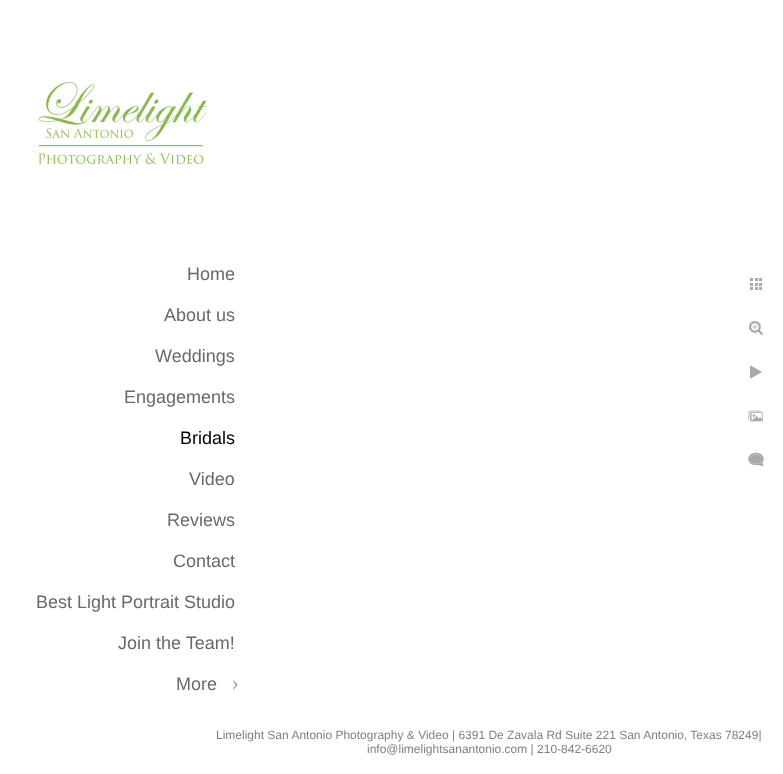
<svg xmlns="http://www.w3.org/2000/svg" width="783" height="774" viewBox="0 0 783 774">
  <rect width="100%" height="100%" fill="#fff"/>
  <image x="37" y="80" width="171" height="84" href="img/1.png"/>
  <image x="232" y="680" width="6" height="10" href="img/2.png"/>
  <image x="750" y="278" width="12" height="12" href="img/3.png"/>
  <image x="749" y="321" width="14" height="14" href="img/4.png"/>
  <image x="750" y="365" width="12" height="14" href="img/5.png"/>
  <image x="748" y="410" width="15" height="12" href="img/6.png"/>
  <image x="748" y="452" width="16" height="15" href="img/7.png"/>
  <g font-family="Liberation Sans" font-size="18" fill="#696969">
    <text x="187" y="280">Home</text>
    <text x="164" y="321">About us</text>
    <text x="155" y="362">Weddings</text>
    <text x="124" y="403">Engagements</text>
  </g>
  <text x="180" y="444" font-family="Liberation Sans" font-size="18" fill="#000">Bridals</text>
  <g font-family="Liberation Sans" font-size="18" fill="#696969">
    <text x="189" y="485">Video</text>
    <text x="167" y="526">Reviews</text>
    <text x="173" y="567">Contact</text>
    <text x="36" y="608">Best Light Portrait Studio</text>
    <text x="118" y="649">Join the Team!</text>
    <text x="176" y="690">More</text>
  </g>
  <g font-family="Liberation Sans" font-size="12" fill="#808080">
    <text x="216" y="739">Limelight San Antonio Photography &amp; Video | 6391 De Zavala Rd Suite 221 San Antonio, Texas 78249|</text>
    <text x="367" y="753">info@limelightsanantonio.com | 210-842-6620</text>
  </g>
</svg>
